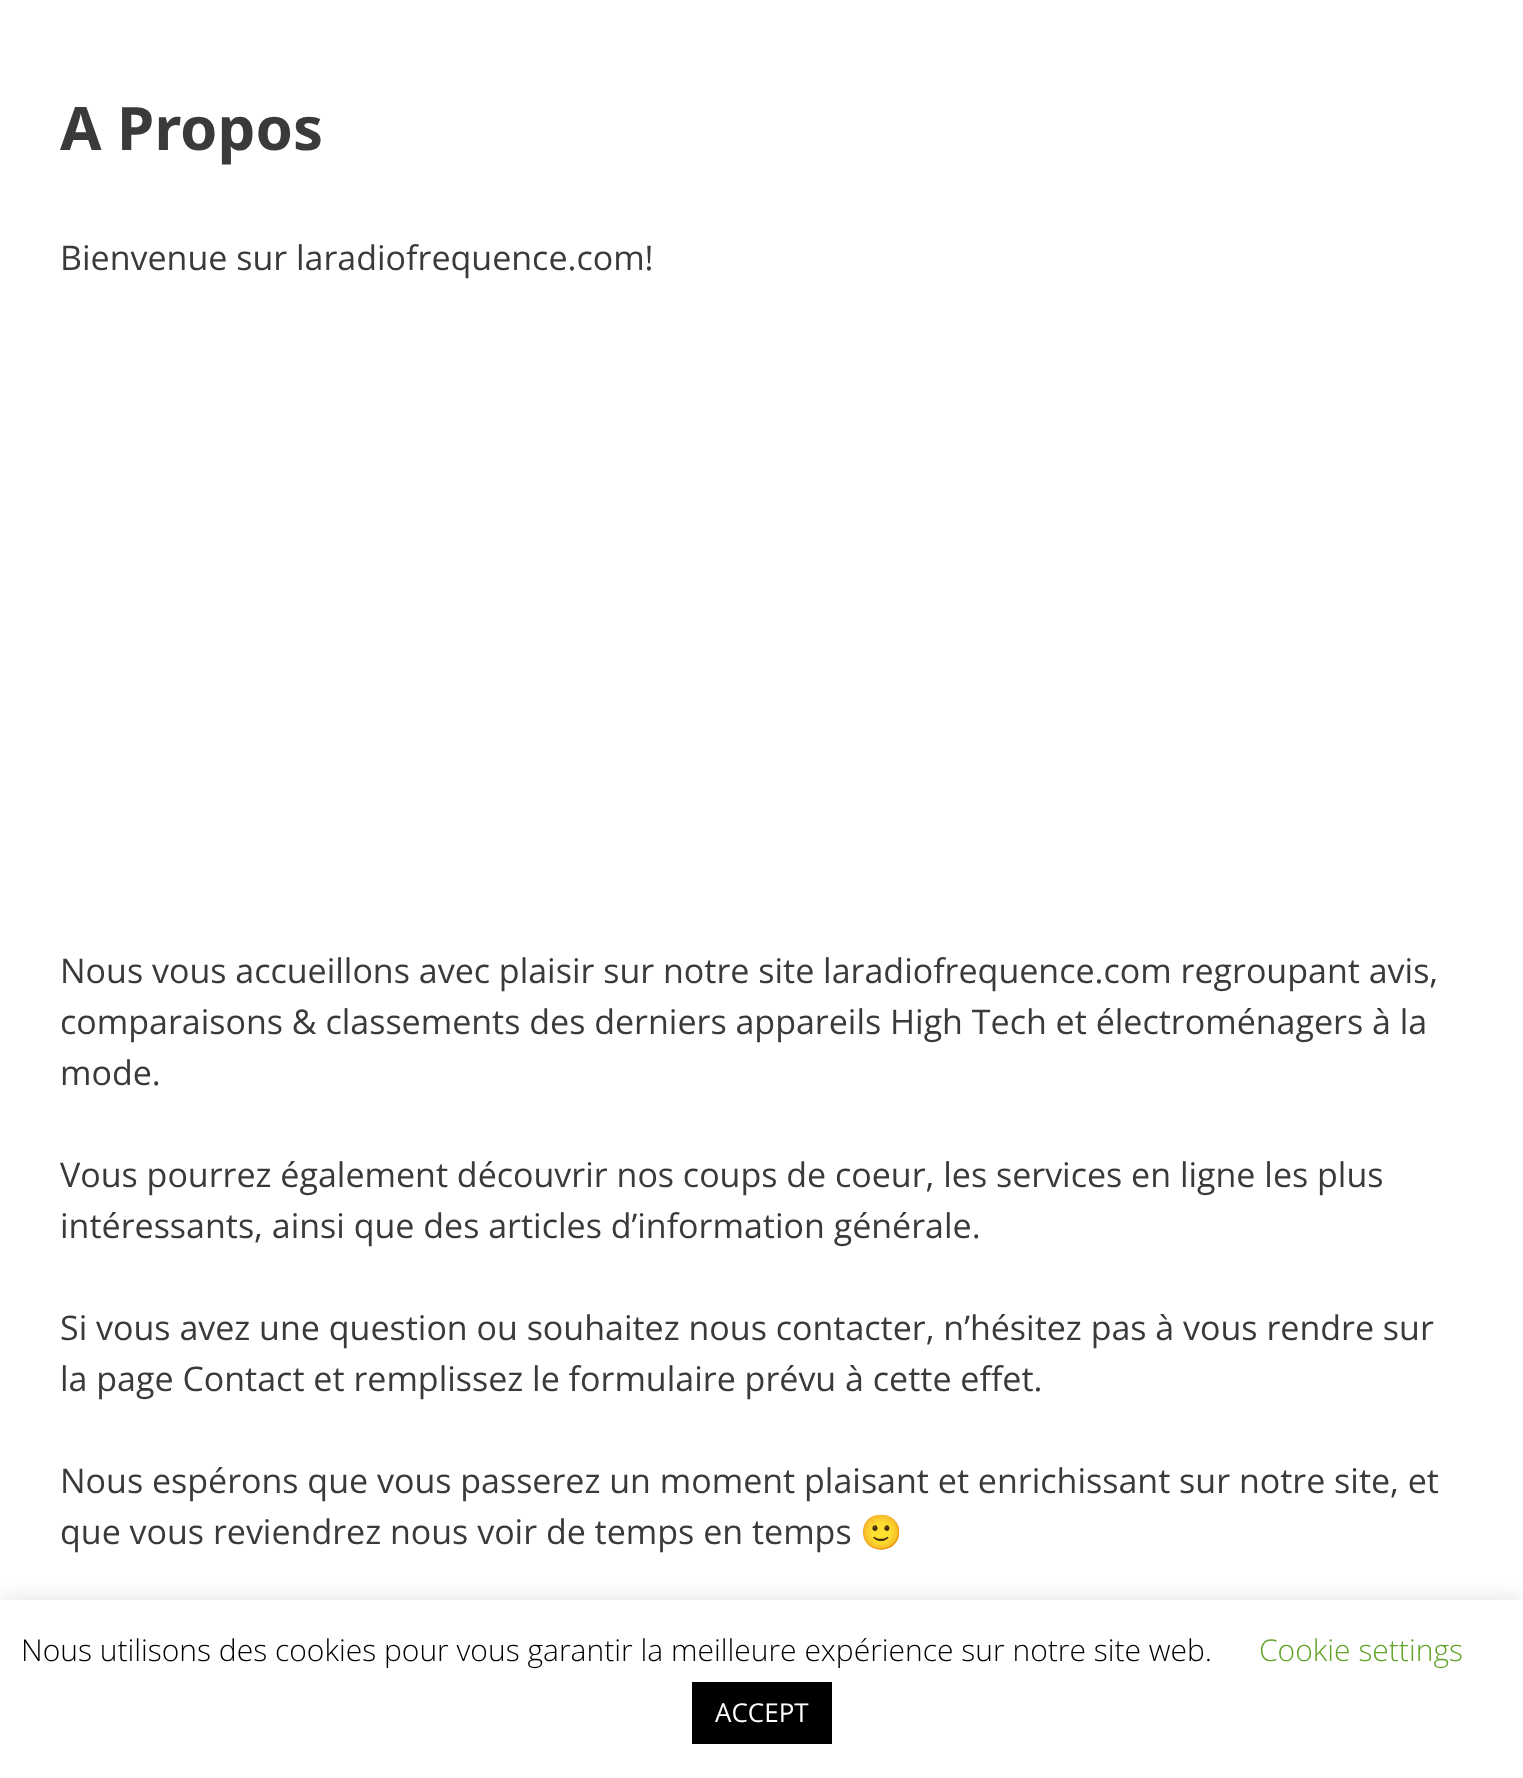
<svg xmlns="http://www.w3.org/2000/svg" width="1523" height="1778" viewBox="0 0 1523 1778">
  <rect width="100%" height="100%" fill="#fff"/>
  <path d="M0 1598h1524v178H0z" fill="#acabab4d" filter="blur(10px)"/>
  <path d="M0 1600h1523v178H0z" fill="#fff"/>
  <path d="M692 1682h140v62H692z" fill="#000"/>
  <text x="60" y="150" font-family="Noto Sans" font-size="60" font-weight="bold" fill="#3a3a3a">A Propos</text>
  <g font-family="Open Sans" font-size="34" fill="#3a3a3a">
    <text x="60" y="270">Bienvenue sur laradiofrequence.com!</text>
    <text x="60" y="983">Nous vous accueillons avec plaisir sur notre site laradiofrequence.com regroupant avis,</text>
    <text x="60" y="1034">comparaisons &amp; classements des derniers appareils High Tech et électroménagers à la</text>
    <text x="60" y="1085">mode.</text>
    <text x="60" y="1187">Vous pourrez également découvrir nos coups de coeur, les services en ligne les plus</text>
    <text x="60" y="1238">intéressants, ainsi que des articles d’information générale.</text>
    <text x="60" y="1340">Si vous avez une question ou souhaitez nous contacter, n’hésitez pas à vous rendre sur</text>
    <text x="60" y="1391">la page Contact et remplissez le formulaire prévu à cette effet.</text>
    <text x="60" y="1493">Nous espérons que vous passerez un moment plaisant et enrichissant sur notre site, et</text>
    <text x="60" y="1544">que vous reviendrez nous voir de temps en temps</text>
  </g>
  <text x="860" y="1544" font-family="Noto Color Emoji" font-size="34" fill="#3a3a3a">🙂</text>
  <text x="21" y="1661" font-family="Open Sans" font-size="30" font-weight="300" fill="#000">Nous utilisons des cookies pour vous garantir la meilleure expérience sur notre site web.</text>
  <text x="1259" y="1661" font-family="Open Sans" font-size="30" font-weight="300" fill="#62a329">Cookie settings</text>
  <text x="715" y="1722" font-family="Open Sans" font-size="26" fill="#fff">ACCEPT</text>
</svg>
